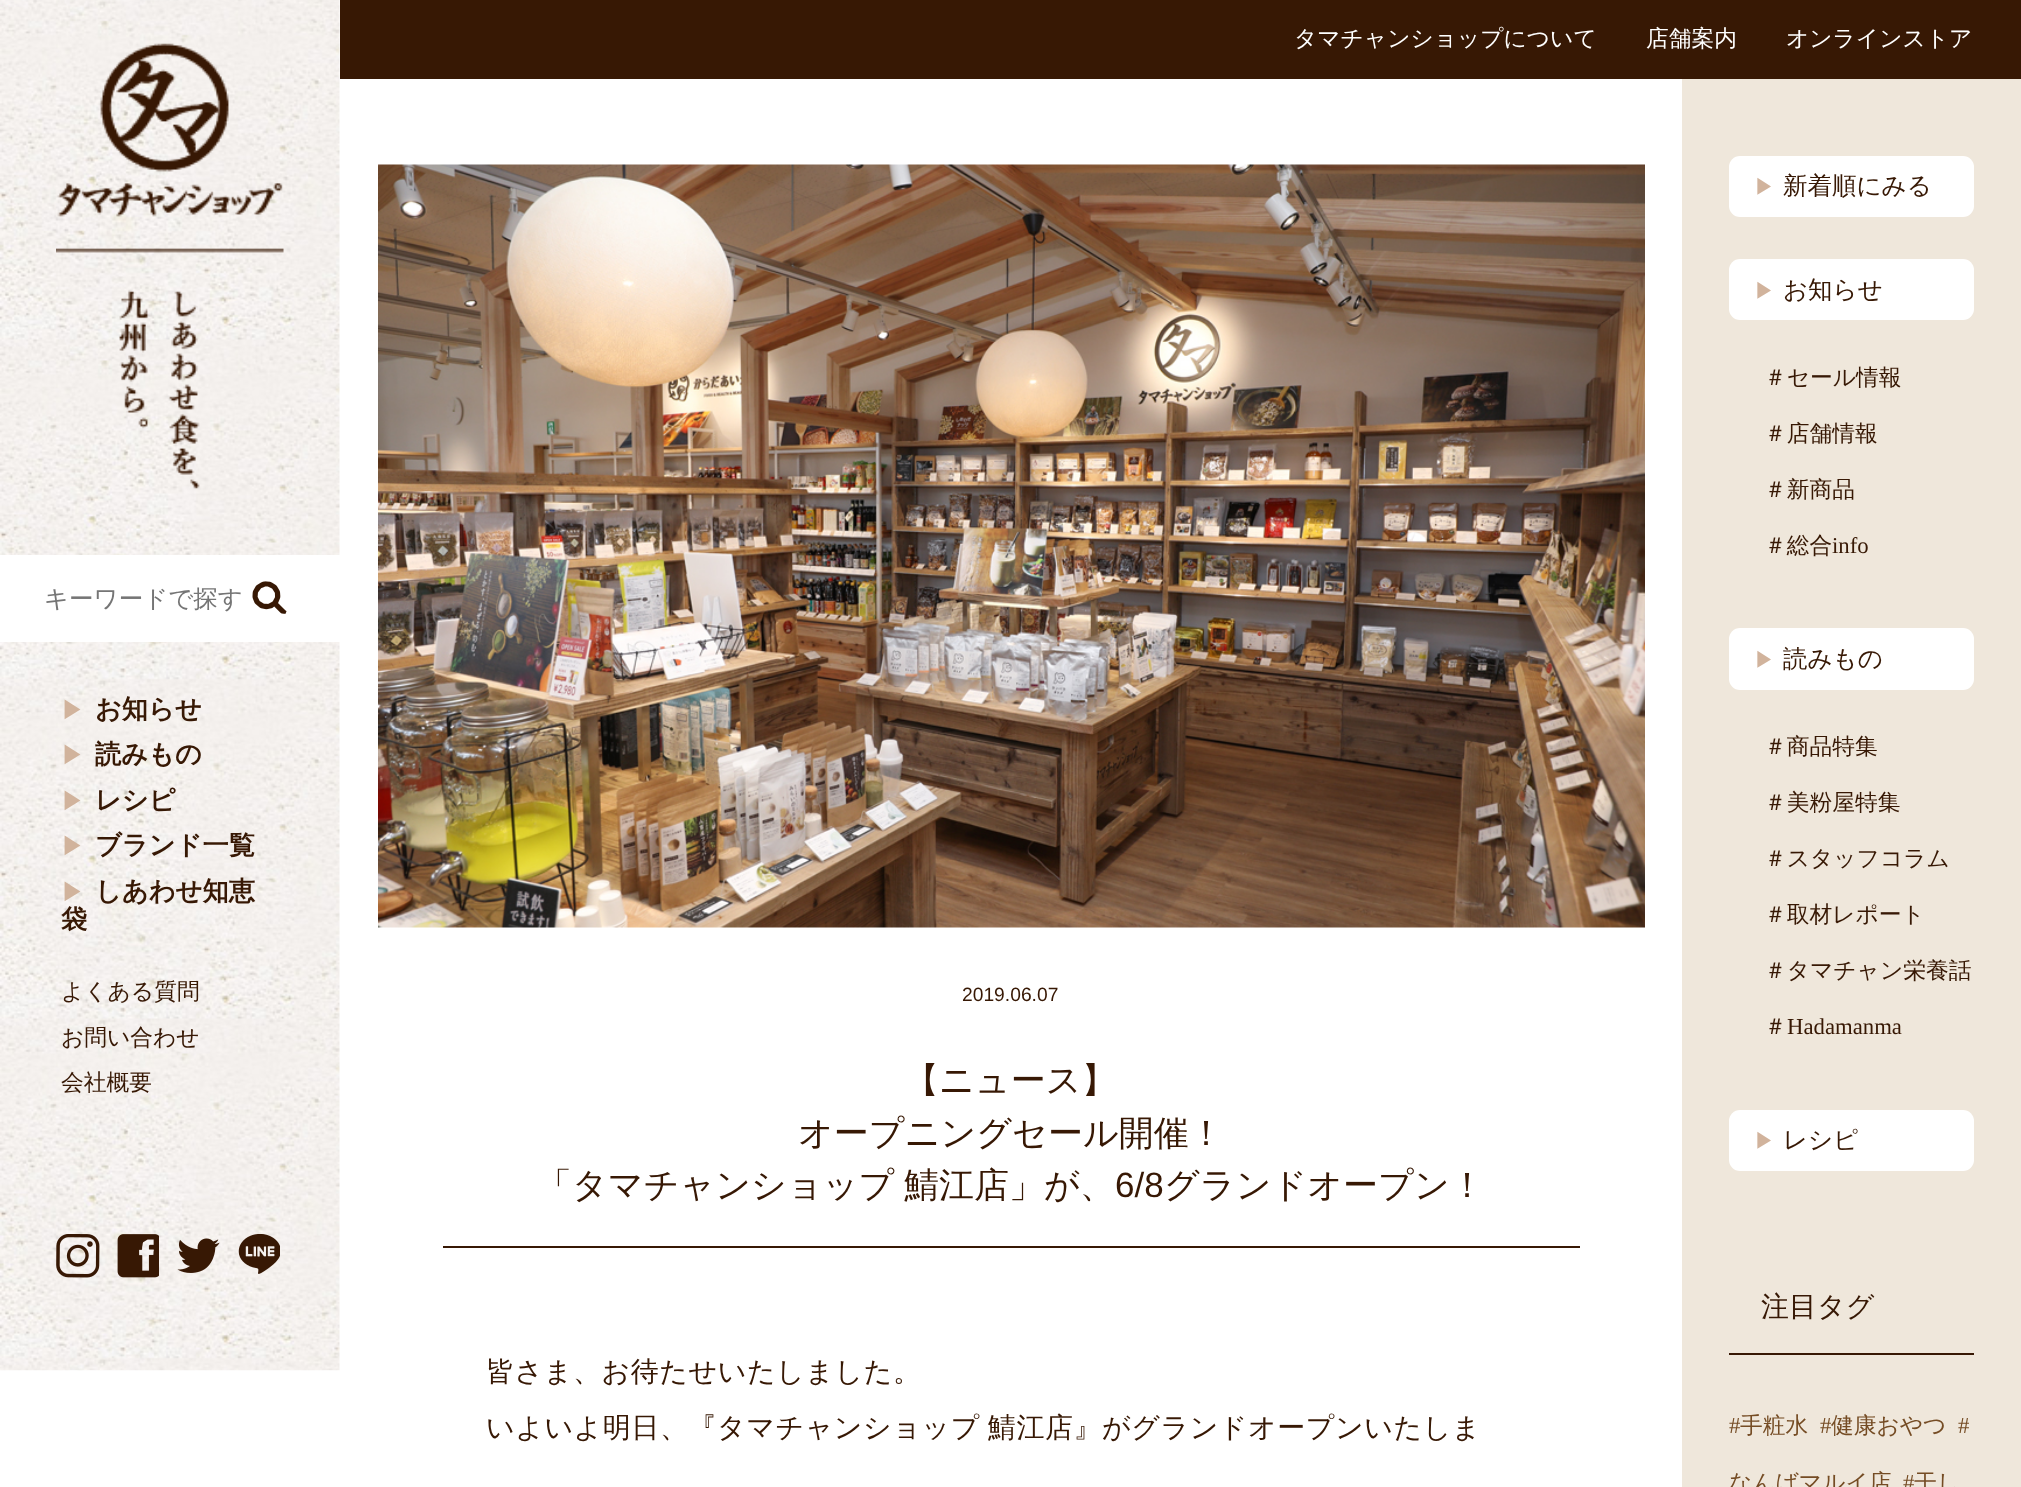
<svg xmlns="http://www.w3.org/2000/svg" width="2021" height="1487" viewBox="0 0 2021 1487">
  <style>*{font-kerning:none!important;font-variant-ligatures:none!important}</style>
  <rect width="100%" height="100%" fill="#fff"/>
  <image x="0" y="0" width="340" height="1371" href="img/1.png"/>
  <image x="56" y="43" width="228" height="446" href="img/2.png"/>
  <path d="M0 555h340v87H0z" fill="#fff"/>
  <image x="252" y="581" width="35" height="33" href="img/3.png"/>
  <image x="56" y="1234" width="44" height="44" href="img/4.png"/>
  <image x="117" y="1234" width="42" height="44" href="img/5.png"/>
  <image x="177" y="1238" width="43" height="35" href="img/6.png"/>
  <image x="238" y="1234" width="42" height="40" href="img/7.png"/>
  <path d="M340 0h1681v79H340z" fill="#371804"/>
  <image x="378" y="164" width="1267" height="764" href="img/8.png"/>
  <path d="M443 1246h1137v2H443z" fill="#371804"/>
  <path d="M1682 79h339v1408H1682z" fill="#efe7db"/>
  <rect x="1729" y="156" width="245" height="61" rx="11" fill="#fff"/>
  <rect x="1729" y="259" width="245" height="61" rx="11" fill="#fff"/>
  <rect x="1729" y="628" width="245" height="62" rx="11" fill="#fff"/>
  <rect x="1729" y="1110" width="245" height="61" rx="11" fill="#fff"/>
  <path d="M1729 1353h245v2H1729z" fill="#371804"/>
  <text x="44" y="607" font-family="WenQuanYi Zen Hei" font-size="24.5" font-weight="500" fill="#757575">キーワードで探す</text>
  <text x="61" y="718" font-family="WenQuanYi Zen Hei" font-size="22.75" font-weight="bold" fill="#d1b39c">▶︎</text>
  <text x="95" y="718" font-family="WenQuanYi Zen Hei" font-size="26.25" font-weight="bold" fill="#371804">お知らせ</text>
  <text x="61" y="763" font-family="WenQuanYi Zen Hei" font-size="22.75" font-weight="bold" fill="#d1b39c">▶︎</text>
  <text x="95" y="763" font-family="WenQuanYi Zen Hei" font-size="26.25" font-weight="bold" fill="#371804">読みもの</text>
  <text x="61" y="809" font-family="WenQuanYi Zen Hei" font-size="22.75" font-weight="bold" fill="#d1b39c">▶︎</text>
  <text x="95" y="809" font-family="WenQuanYi Zen Hei" font-size="26.25" font-weight="bold" fill="#371804">レシピ</text>
  <text x="61" y="854" font-family="WenQuanYi Zen Hei" font-size="22.75" font-weight="bold" fill="#d1b39c">▶︎</text>
  <text x="95" y="854" font-family="WenQuanYi Zen Hei" font-size="26.25" font-weight="bold" fill="#371804">ブランド一覧</text>
  <text x="61" y="900" font-family="WenQuanYi Zen Hei" font-size="22.75" font-weight="bold" fill="#d1b39c">▶︎</text>
  <g font-family="WenQuanYi Zen Hei" font-size="26.25" font-weight="bold" fill="#371804">
    <text x="95" y="900">しあわせ知恵</text>
    <text x="61" y="928">袋</text>
  </g>
  <g font-family="WenQuanYi Zen Hei" font-size="22.75" font-weight="500" fill="#371804">
    <text x="61" y="999">よくある質問</text>
    <text x="61" y="1045">お問い合わせ</text>
    <text x="61" y="1090">会社概要</text>
  </g>
  <g font-family="WenQuanYi Zen Hei" font-size="22.75" font-weight="500" fill="#fff">
    <text x="1294" y="46">タマチャンショップについて</text>
    <text x="1646" y="46">店舗案内</text>
    <text x="1786" y="46">オンラインストア</text>
  </g>
  <text x="962" y="1001" font-family="Liberation Sans" font-size="19.25" fill="#371804">2019.06.07</text>
  <g font-family="WenQuanYi Zen Hei" font-size="35" font-weight="500" fill="#371804">
    <text x="904" y="1092">【ニュース】</text>
    <text x="798" y="1145">オープニングセール開催！</text>
    <text x="537" y="1197" word-spacing="-1">「タマチャンショップ 鯖江店」が、</text>
  </g>
  <text x="1115" y="1197" font-family="Liberation Sans" font-size="35" fill="#371804">6/8</text>
  <text x="1164" y="1197" font-family="WenQuanYi Zen Hei" font-size="35" font-weight="500" fill="#371804">グランドオープン！</text>
  <g font-family="WenQuanYi Zen Hei" font-size="28" font-weight="500" letter-spacing="0.55" fill="#371804">
    <text x="486" y="1381">皆さま、お待たせいたしました。</text>
    <text x="486" y="1437" word-spacing="-1">いよいよ明日、『タマチャンショップ 鯖江店』がグランドオープンいたしま</text>
  </g>
  <text x="1754" y="194" font-family="WenQuanYi Zen Hei" font-size="21" font-weight="500" fill="#d1b39c">▶</text>
  <text x="1783" y="194" font-family="WenQuanYi Zen Hei" font-size="24.5" font-weight="500" fill="#371804">新着順にみる</text>
  <text x="1754" y="298" font-family="WenQuanYi Zen Hei" font-size="21" font-weight="500" fill="#d1b39c">▶</text>
  <text x="1783" y="298" font-family="WenQuanYi Zen Hei" font-size="24.5" font-weight="500" fill="#371804">お知らせ</text>
  <g font-family="WenQuanYi Zen Hei" font-size="22.75" font-weight="500" fill="#371804">
    <text x="1764" y="385">＃セール情報</text>
    <text x="1764" y="441">＃店舗情報</text>
    <text x="1764" y="497">＃新商品</text>
    <text x="1764" y="553">＃総合</text>
  </g>
  <text x="1832" y="553" font-family="Liberation Serif" font-size="22.75" fill="#371804">info</text>
  <text x="1754" y="667" font-family="WenQuanYi Zen Hei" font-size="21" font-weight="500" fill="#d1b39c">▶</text>
  <text x="1783" y="667" font-family="WenQuanYi Zen Hei" font-size="24.5" font-weight="500" fill="#371804">読みもの</text>
  <g font-family="WenQuanYi Zen Hei" font-size="22.75" font-weight="500" fill="#371804">
    <text x="1764" y="754">＃商品特集</text>
    <text x="1764" y="810">＃美粉屋特集</text>
    <text x="1764" y="866">＃スタッフコラム</text>
    <text x="1764" y="922">＃取材レポート</text>
    <text x="1764" y="978">＃タマチャン栄養話</text>
    <text x="1764" y="1034">＃</text>
  </g>
  <text x="1787" y="1034" font-family="Liberation Serif" font-size="22.75" fill="#371804">Hadamanma</text>
  <text x="1754" y="1148" font-family="WenQuanYi Zen Hei" font-size="21" font-weight="500" fill="#d1b39c">▶</text>
  <text x="1783" y="1148" font-family="WenQuanYi Zen Hei" font-size="24.5" font-weight="500" fill="#371804">レシピ</text>
  <text x="1761" y="1316" font-family="WenQuanYi Zen Hei" font-size="28" font-weight="500" fill="#371804">注目タグ</text>
  <text x="1729" y="1433" font-family="Liberation Serif" font-size="22.75" fill="#754c24">#</text>
  <text x="1740" y="1433" font-family="WenQuanYi Zen Hei" font-size="22.75" font-weight="500" fill="#754c24">手粧水</text>
  <text x="1820" y="1433" font-family="Liberation Serif" font-size="22.75" fill="#754c24">#</text>
  <text x="1831" y="1433" font-family="WenQuanYi Zen Hei" font-size="22.75" font-weight="500" fill="#754c24">健康おやつ</text>
  <text x="1958" y="1433" font-family="Liberation Serif" font-size="22.75" fill="#754c24">#</text>
  <text x="1729" y="1490" font-family="WenQuanYi Zen Hei" font-size="22.75" font-weight="500" fill="#754c24">なんばマルイ店</text>
  <text x="1903" y="1490" font-family="Liberation Serif" font-size="22.75" fill="#754c24">#</text>
  <text x="1914" y="1490" font-family="WenQuanYi Zen Hei" font-size="22.75" font-weight="500" fill="#754c24">干し</text>
</svg>
